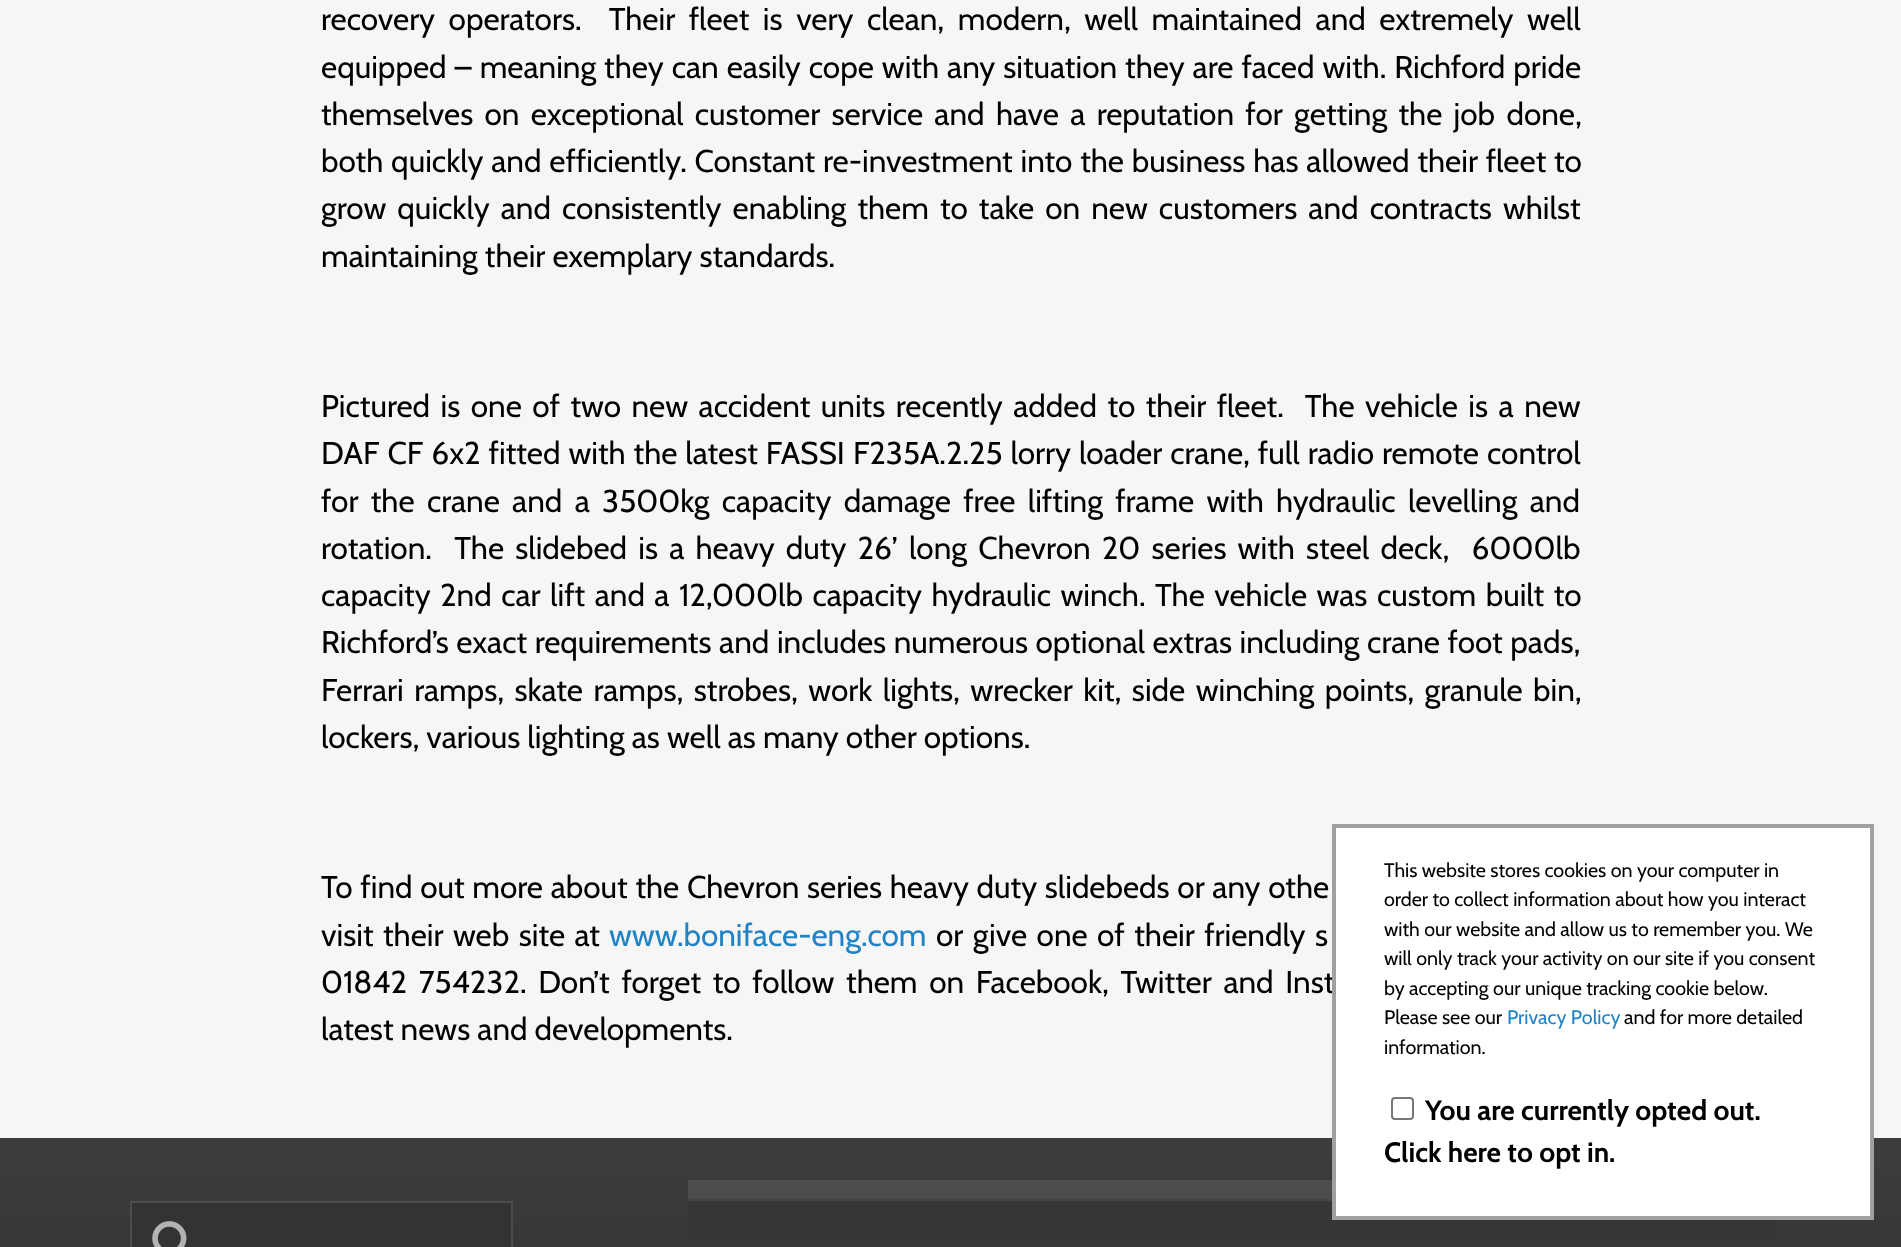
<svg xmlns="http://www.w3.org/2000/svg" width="1901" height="1247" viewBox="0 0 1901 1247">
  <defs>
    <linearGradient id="g1" gradientUnits="userSpaceOnUse" x1="951" y1="1138" x2="951" y2="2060"><stop offset="0" stop-color="#3d3d3d"/><stop offset="0.2" stop-color="#333"/><stop offset="1" stop-color="#292929"/></linearGradient>
    <linearGradient id="g2" gradientUnits="userSpaceOnUse" x1="951" y1="1138" x2="951" y2="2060"><stop offset="0" stop-color="#383838"/><stop offset="0.2" stop-color="#333"/><stop offset="1" stop-color="#2e2e2e"/></linearGradient>
  </defs>
  <rect width="100%" height="100%" fill="#f6f6f6"/>
  <path d="M0 1138h1901v109H0z" fill="url(#g1)"/>
  <path d="M688 1201h1087v38H688z" fill="url(#g2)"/>
  <path d="M688 1180h644v19H688z" fill="#4d4d4d"/>
  <path d="M688 1199h644v2H688z" fill="#444"/>
  <path d="M131 1202h381v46H131z" fill="#333" stroke="#4d4d4d" stroke-width="2"/>
  <image x="152" y="1221" width="35" height="26" href="img/1.png"/>
  <g font-family="Cabin" font-size="31.5" fill="#000">
    <text x="321" y="30" word-spacing="6.5" xml:space="preserve">recovery operators.  Their fleet is very clean, modern, well maintained and extremely well</text>
    <text x="321" y="78" word-spacing="0.9">equipped – meaning they can easily cope with any situation they are faced with. Richford pride</text>
    <text x="321" y="125" word-spacing="4.25">themselves on exceptional customer service and have a reputation for getting the job done,</text>
    <text x="321" y="172" word-spacing="0.75">both quickly and efficiently. Constant re-investment into the business has allowed their fleet to</text>
    <text x="321" y="219" word-spacing="4">grow quickly and consistently enabling them to take on new customers and contracts whilst</text>
    <text x="321" y="267">maintaining their exemplary standards.</text>
    <text x="321" y="417" word-spacing="3.4" xml:space="preserve">Pictured is one of two new accident units recently added to their fleet.  The vehicle is a new</text>
    <text x="321" y="464" word-spacing="0.9">DAF CF 6x2 fitted with the latest FASSI F235A.2.25 lorry loader crane, full radio remote control</text>
    <text x="321" y="512" word-spacing="5.25">for the crane and a 3500kg capacity damage free lifting frame with hydraulic levelling and</text>
    <text x="321" y="559" word-spacing="4.1" xml:space="preserve">rotation.  The slidebed is a heavy duty 26’ long Chevron 20 series with steel deck,  6000lb</text>
    <text x="321" y="606" word-spacing="2.4">capacity 2nd car lift and a 12,000lb capacity hydraulic winch. The vehicle was custom built to</text>
    <text x="321" y="653" word-spacing="0.5">Richford’s exact requirements and includes numerous optional extras including crane foot pads,</text>
    <text x="321" y="701" word-spacing="3.4">Ferrari ramps, skate ramps, strobes, work lights, wrecker kit, side winching points, granule bin,</text>
    <text x="321" y="748">lockers, various lighting as well as many other options.</text>
    <text x="321" y="898" word-spacing="0.6">To find out more about the Chevron series heavy duty slidebeds or any othe</text>
    <text x="321" y="946" word-spacing="2.4">visit their web site at</text>
  </g>
  <text x="609" y="946" font-family="Cabin" font-size="31.5" fill="#2083c5">www.boniface-eng.com</text>
  <g font-family="Cabin" font-size="31.5" fill="#000">
    <text x="936" y="946" word-spacing="2.4">or give one of their friendly s</text>
    <text x="321" y="993" word-spacing="4.6">01842 754232. Don’t forget to follow them on Facebook, Twitter and Inst</text>
    <text x="321" y="1040">latest news and developments.</text>
  </g>
  <path d="M1334 826h538v392H1334z" fill="#fff" stroke="#a0a0a0" stroke-width="4"/>
  <g font-family="Cabin" font-size="19.7" fill="#000">
    <text x="1384" y="877">This website stores cookies on your computer in</text>
    <text x="1384" y="906">order to collect information about how you interact</text>
    <text x="1384" y="936">with our website and allow us to remember you. We</text>
    <text x="1384" y="965">will only track your activity on our site if you consent</text>
    <text x="1384" y="995">by accepting our unique tracking cookie below.</text>
    <text x="1384" y="1024">Please see our</text>
  </g>
  <text x="1507" y="1024" font-family="Cabin" font-size="19.7" fill="#2083c5">Privacy Policy</text>
  <g font-family="Cabin" font-size="19.7" fill="#000">
    <text x="1624" y="1024">and for more detailed</text>
    <text x="1384" y="1054">information.</text>
  </g>
  <rect x="1392" y="1098" width="21" height="21" rx="3" fill="none" stroke="#767676" stroke-width="2"/>
  <g font-family="Cabin" font-size="28" font-weight="bold" fill="#000">
    <text x="1425" y="1120">You are currently opted out.</text>
    <text x="1384" y="1162">Click here to opt in.</text>
  </g>
</svg>
